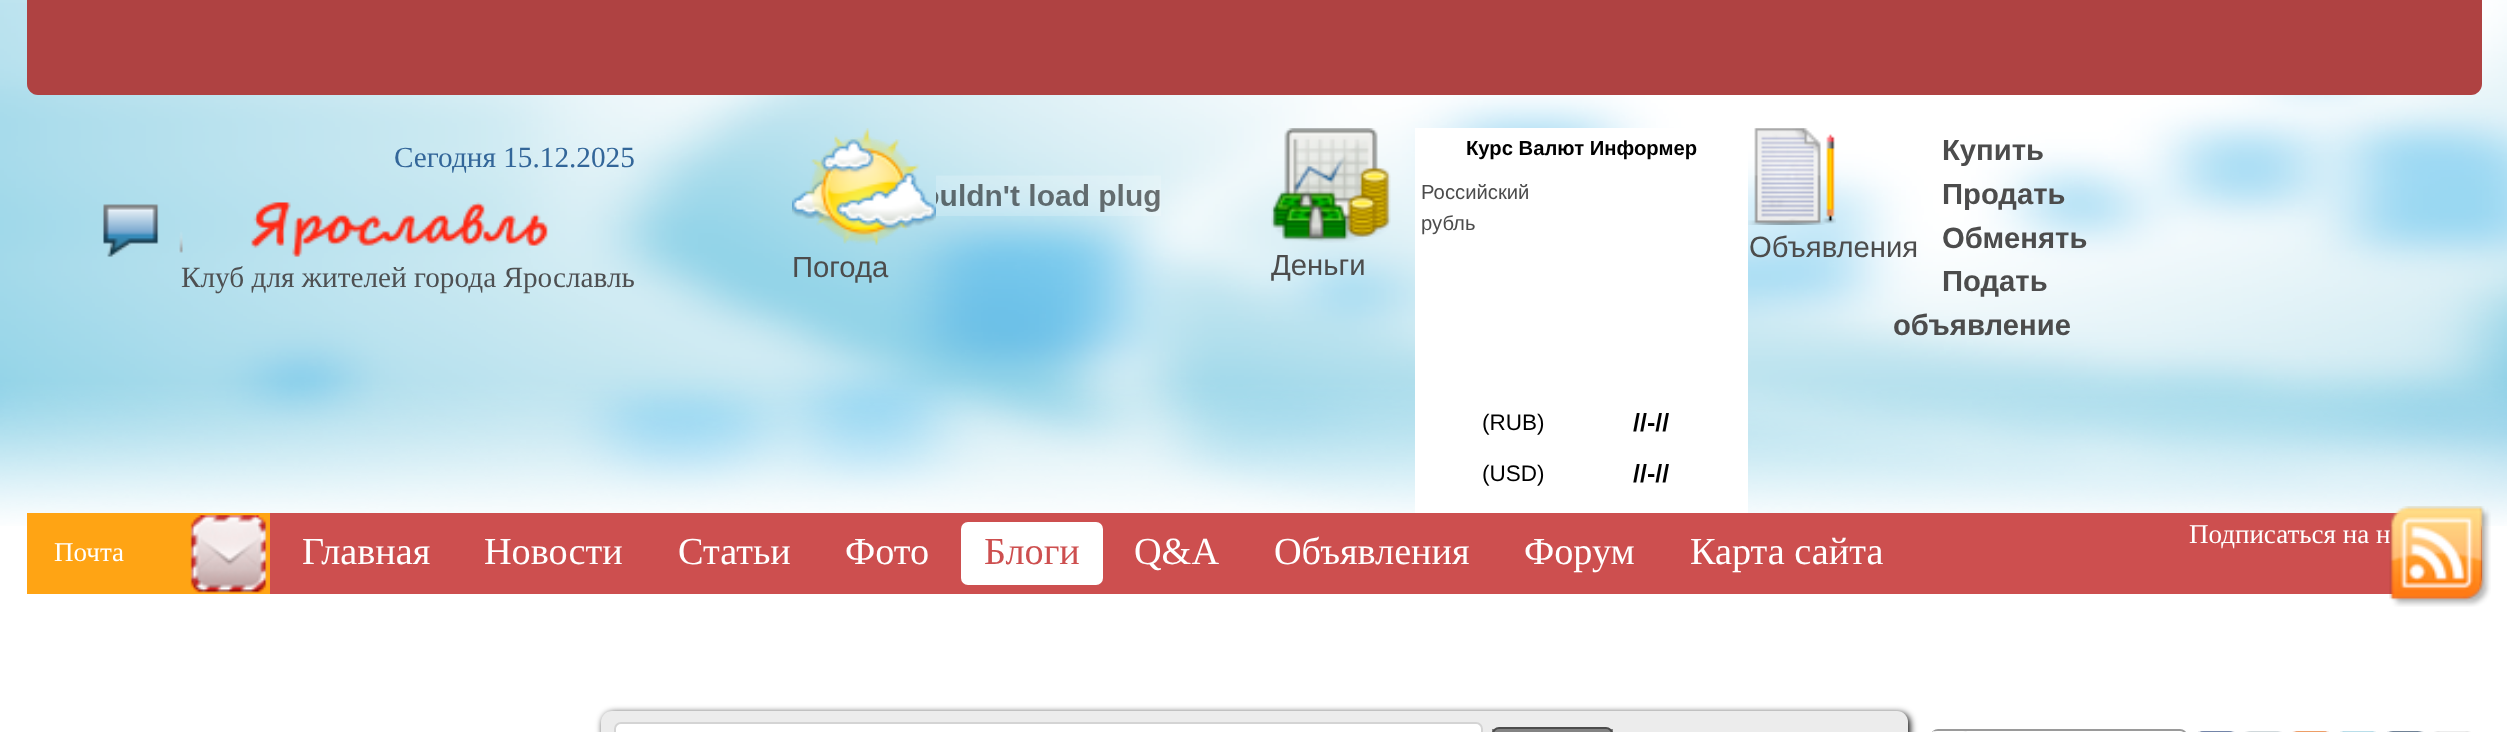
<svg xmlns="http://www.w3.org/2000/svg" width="2507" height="732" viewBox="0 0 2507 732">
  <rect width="100%" height="100%" fill="#fff"/>
  <image x="0" y="0" width="2507" height="526" href="img/1.png"/>
  <path d="M27 0H2482V84C2482 90 2477 95 2471 95H38C32 95 27 90 27 84Z" fill="#af4242"/>
  <image x="103" y="202" width="445" height="55" href="img/2.png"/>
  <image x="936" y="175" width="225" height="41" href="img/3.png"/>
  <image x="792" y="128" width="144" height="118" href="img/4.png"/>
  <image x="1271" y="128" width="120" height="115" href="img/5.png"/>
  <path d="M1415 128h333v385H1415z" fill="#fff"/>
  <image x="1748" y="128" width="88" height="97" href="img/6.png"/>
  <rect x="27" y="513" width="2455" height="81" rx="18" fill="#cd4f4f"/>
  <path d="M27 513h243v81H27z" fill="#ffa414"/>
  <image x="190" y="515" width="77" height="78" href="img/7.png"/>
  <rect x="961" y="522" width="142" height="63" rx="7" fill="#fff"/>
  <rect x="603" y="713" width="1307" height="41" rx="11" fill="#000" filter="blur(3.5px)"/>
  <rect x="601" y="711" width="1307" height="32" rx="11" fill="#ececec"/>
  <rect x="615" y="723" width="867" height="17" rx="6" fill="#fff" stroke="#d4d4d4" stroke-width="2"/>
  <path d="M1492 729h121v3H1492z" fill="#838383"/>
  <rect x="1493" y="728" width="119" height="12" rx="6" fill="none" stroke="#4c4c4c" stroke-width="2"/>
  <rect x="1932" y="730" width="254" height="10" rx="6" fill="none" stroke="#9a9a9a" stroke-width="2"/>
  <image x="1932" y="731" width="35" height="1" href="img/9.png"/>
  <image x="2198" y="731" width="37" height="1" href="img/10.png"/>
  <image x="2245" y="731" width="37" height="1" href="img/11.png"/>
  <image x="2292" y="731" width="37" height="1" href="img/12.png"/>
  <image x="2340" y="731" width="36" height="1" href="img/13.png"/>
  <image x="2387" y="731" width="37" height="1" href="img/14.png"/>
  <image x="2434" y="731" width="37" height="1" href="img/15.png"/>
  <text x="394" y="167" font-family="Liberation Serif" font-size="29.25" fill="#369">Сегодня 15.12.2025</text>
  <text x="181" y="287" font-family="Liberation Serif" font-size="29.25" fill="#4e5052">Клуб для жителей города Ярославль</text>
  <g font-family="Liberation Sans" font-size="29.25" fill="#4c4c4c">
    <text x="792" y="277">Погода</text>
    <text x="1271" y="275">Деньги</text>
  </g>
  <text x="1466" y="155" font-family="Liberation Sans" font-size="20.25" font-weight="bold" fill="#000">Курс Валют Информер</text>
  <g font-family="Liberation Sans" font-size="20.25" fill="#4c4c4c">
    <text x="1421" y="199">Российский</text>
    <text x="1421" y="230">рубль</text>
  </g>
  <text x="1482" y="430" font-family="Liberation Sans" font-size="22.5" fill="#000">(RUB)</text>
  <text x="1633" y="431" font-family="Liberation Sans" font-size="25" font-weight="bold" fill="#000">//-//</text>
  <text x="1482" y="481" font-family="Liberation Sans" font-size="22.5" fill="#000">(USD)</text>
  <text x="1633" y="482" font-family="Liberation Sans" font-size="25" font-weight="bold" fill="#000">//-//</text>
  <text x="1749" y="257" font-family="Liberation Sans" font-size="29.25" fill="#4c4c4c">Объявления</text>
  <g font-family="Liberation Sans" font-size="29.25" font-weight="bold" fill="#4c4c4c">
    <text x="1942" y="160">Купить</text>
    <text x="1942" y="204">Продать</text>
    <text x="1942" y="248">Обменять</text>
    <text x="1942" y="291">Подать</text>
    <text x="1893" y="335">объявление</text>
  </g>
  <text x="54" y="561" font-family="Liberation Serif" font-size="27" fill="#fff">Почта</text>
  <g font-family="Liberation Serif" font-size="38.25" fill="#fff">
    <text x="302" y="564">Главная</text>
    <text x="484" y="564">Новости</text>
    <text x="678" y="564">Статьи</text>
    <text x="845" y="564">Фото</text>
  </g>
  <text x="984" y="564" font-family="Liberation Serif" font-size="38.25" fill="#cd4f4f">Блоги</text>
  <g font-family="Liberation Serif" font-size="38.25" fill="#fff">
    <text x="1134" y="564">Q&amp;A</text>
    <text x="1274" y="564">Объявления</text>
    <text x="1524" y="564">Форум</text>
    <text x="1690" y="564">Карта сайта</text>
  </g>
  <text x="2189" y="543" font-family="Liberation Serif" font-size="27" fill="#fff">Подписаться на н</text>
  <image x="2389" y="506" width="102" height="101" href="img/8.png"/>
</svg>
